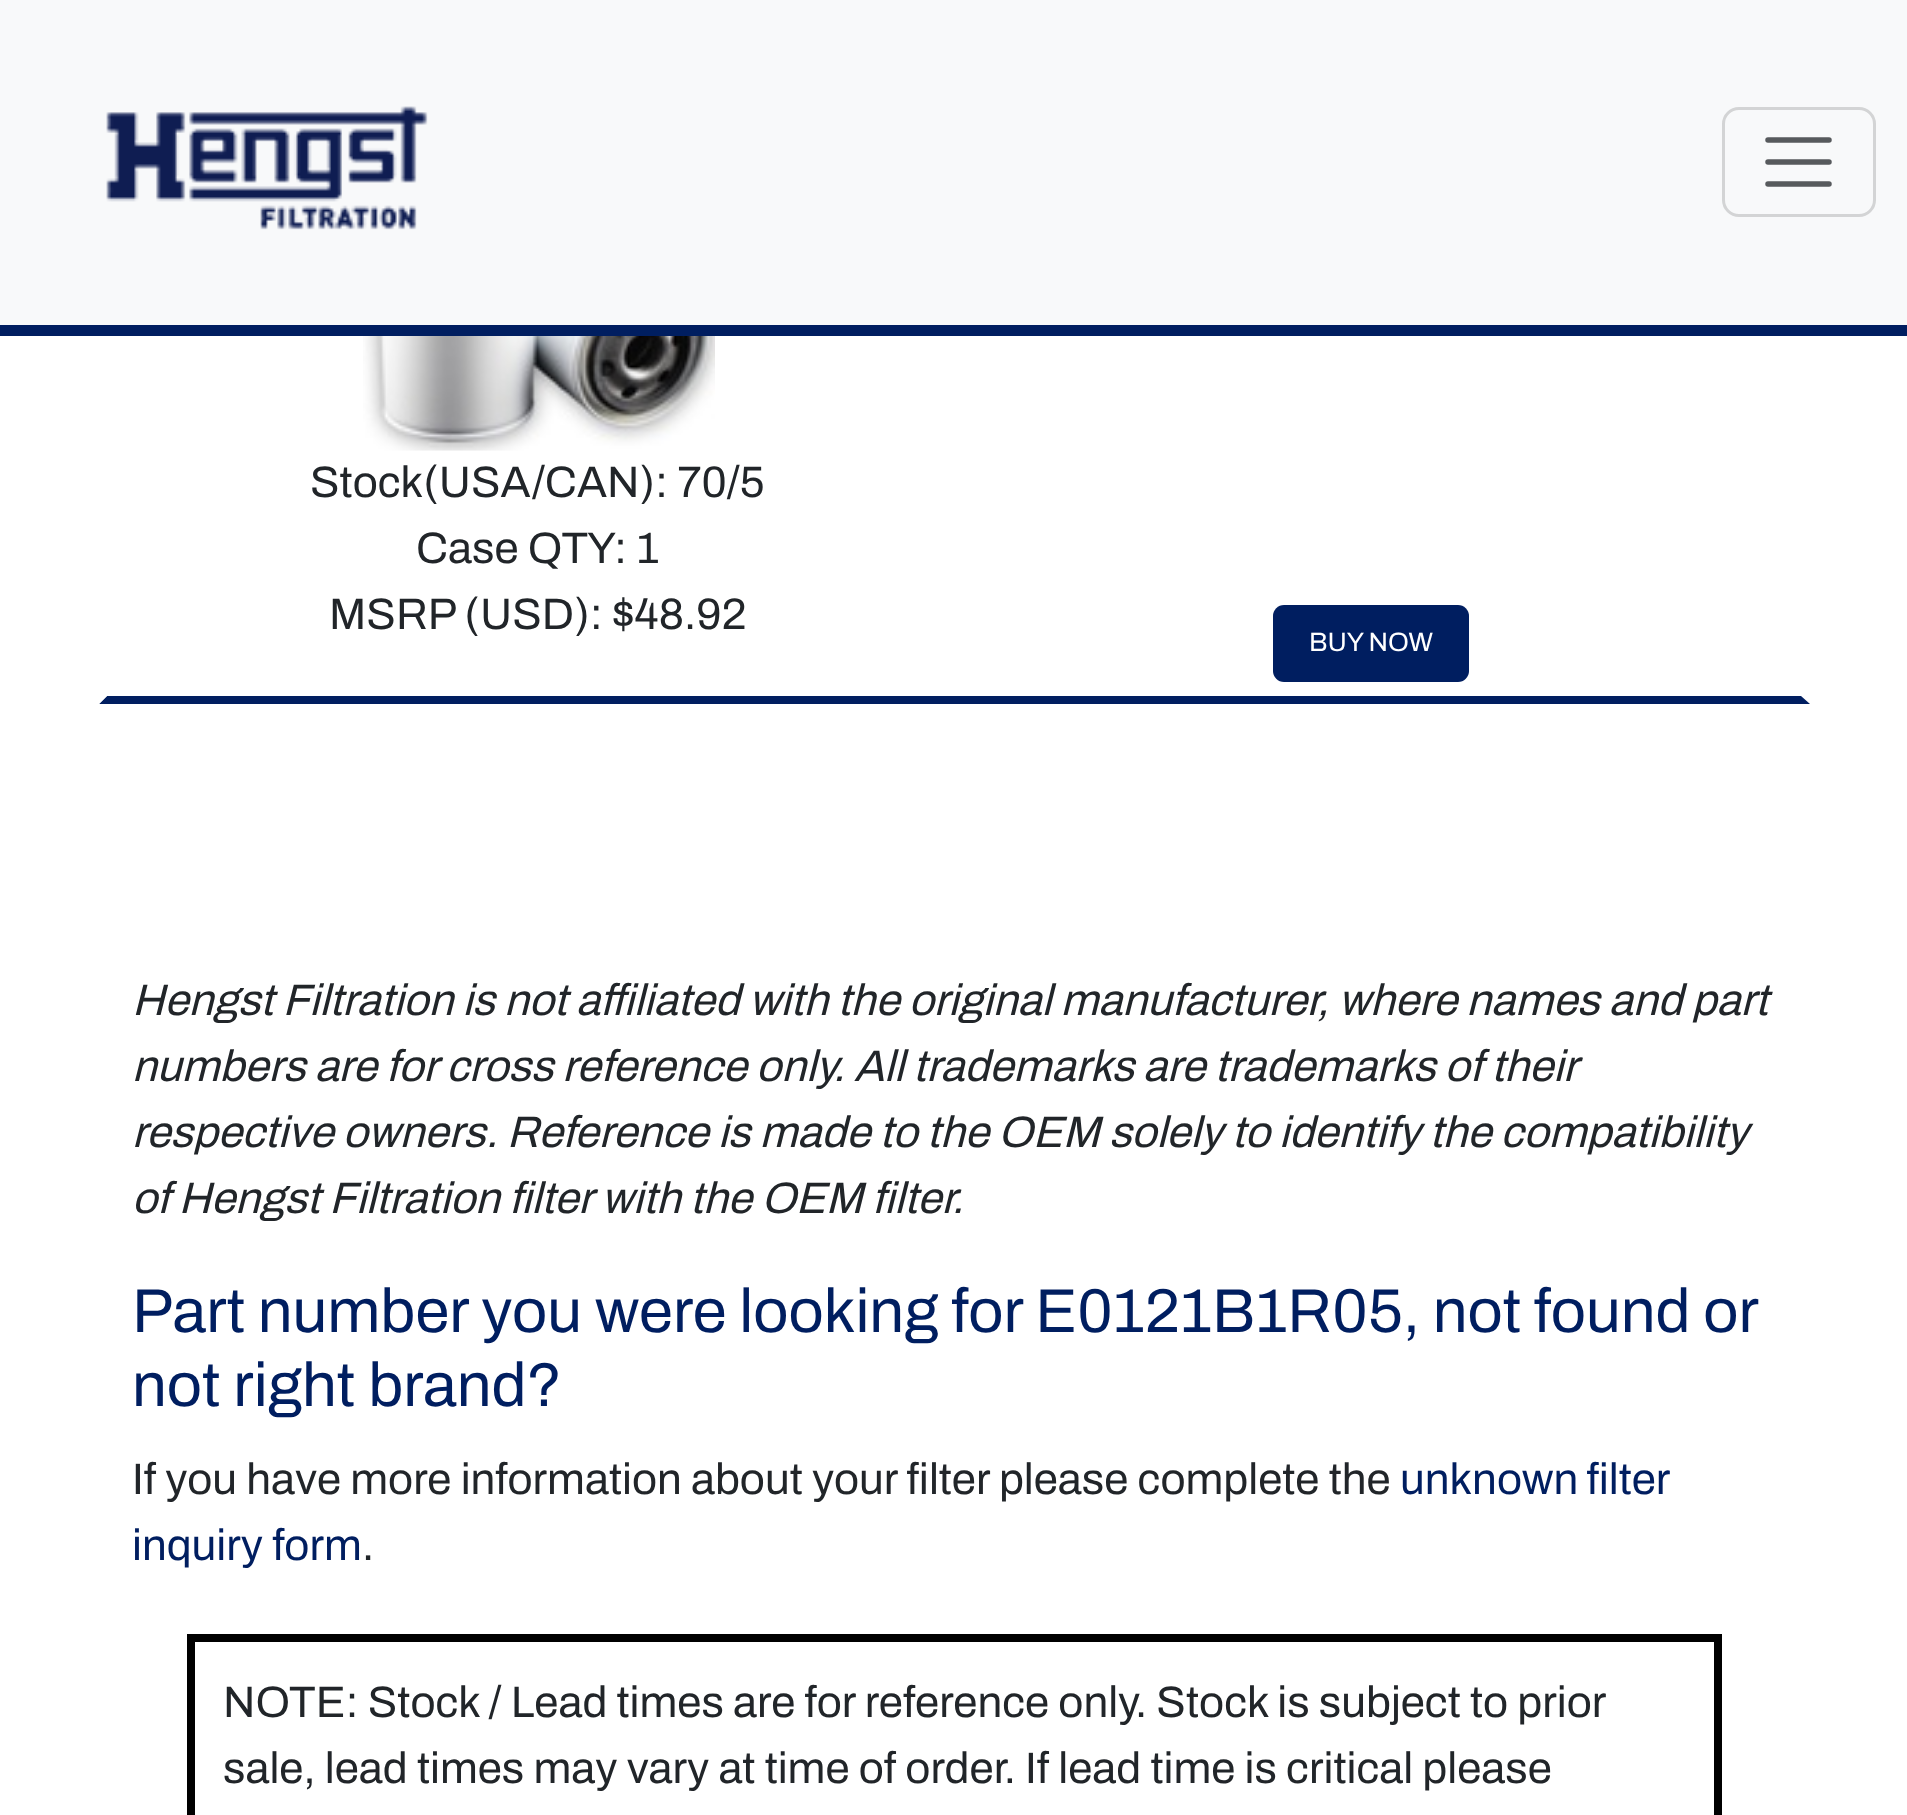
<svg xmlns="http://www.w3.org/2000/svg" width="1907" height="1815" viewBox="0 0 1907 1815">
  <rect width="100%" height="100%" fill="#fff"/>
  <path d="M1810 704H99L107 696H1801Z" fill="#001e60"/>
  <path d="M99 704V154L107 162V696Z" fill="#fff"/>
  <path d="M0 0h1907v325H0z" fill="#f8f9fa"/>
  <path d="M0 325h1907v11H0z" fill="#001e60"/>
  <image x="106" y="106" width="322" height="124" href="img/1.png"/>
  <rect x="1723.5" y="108.5" width="151" height="107" rx="15.5" fill="none" stroke="#d3d4d5" stroke-width="3"/>
  <path d="M1768 140H1829M1768 162H1829M1768 184H1829" fill="none" stroke="#575a5d" stroke-width="5.5" stroke-linecap="round"/>
  <image x="363" y="336" width="352" height="115" href="img/2.png"/>
  <rect x="1273" y="605" width="196" height="77" rx="11" fill="#001e60"/>
  <path d="M191 1638h1527v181H191z" fill="none" stroke="#000" stroke-width="8"/>
  <g font-family="Archivo" font-size="44" font-weight="600" fill="#212529">
    <text x="310" y="497">Stock(USA/CAN): 70/5</text>
    <text x="416" y="563">Case QTY: 1</text>
    <text x="329" y="629">MSRP (USD): $48.92</text>
  </g>
  <text x="1309" y="651" font-family="Archivo" font-size="26.5" font-weight="600" fill="#fff">BUY NOW</text>
  <g font-family="Archivo" font-size="44" font-weight="600" font-style="italic" fill="#212529">
    <text x="132" y="1015">Hengst Filtration is not affiliated with the original manufacturer, where names and part</text>
    <text x="132" y="1081">numbers are for cross reference only. All trademarks are trademarks of their</text>
    <text x="132" y="1147">respective owners. Reference is made to the OEM solely to identify the compatibility</text>
    <text x="132" y="1213">of Hengst Filtration filter with the OEM filter.</text>
  </g>
  <g font-family="Archivo" font-size="61.8" font-weight="600" fill="#001e60">
    <text x="132" y="1332" word-spacing="-0.25">Part number you were looking for E0121B1R05, not found or</text>
    <text x="132" y="1406">not right brand?</text>
  </g>
  <text x="132" y="1494" font-family="Archivo" font-size="44" font-weight="600" fill="#212529">If you have more information about your filter please complete the</text>
  <g font-family="Archivo" font-size="44" font-weight="600" fill="#001e60">
    <text x="1400" y="1494" word-spacing="-1">unknown filter</text>
    <text x="132" y="1560">inquiry form</text>
  </g>
  <g font-family="Archivo" font-size="44" font-weight="600" fill="#212529">
    <text x="362" y="1560">.</text>
    <text x="223" y="1717">NOTE: Stock / Lead times are for reference only. Stock is subject to prior</text>
    <text x="223" y="1783">sale, lead times may vary at time of order. If lead time is critical please</text>
  </g>
</svg>
